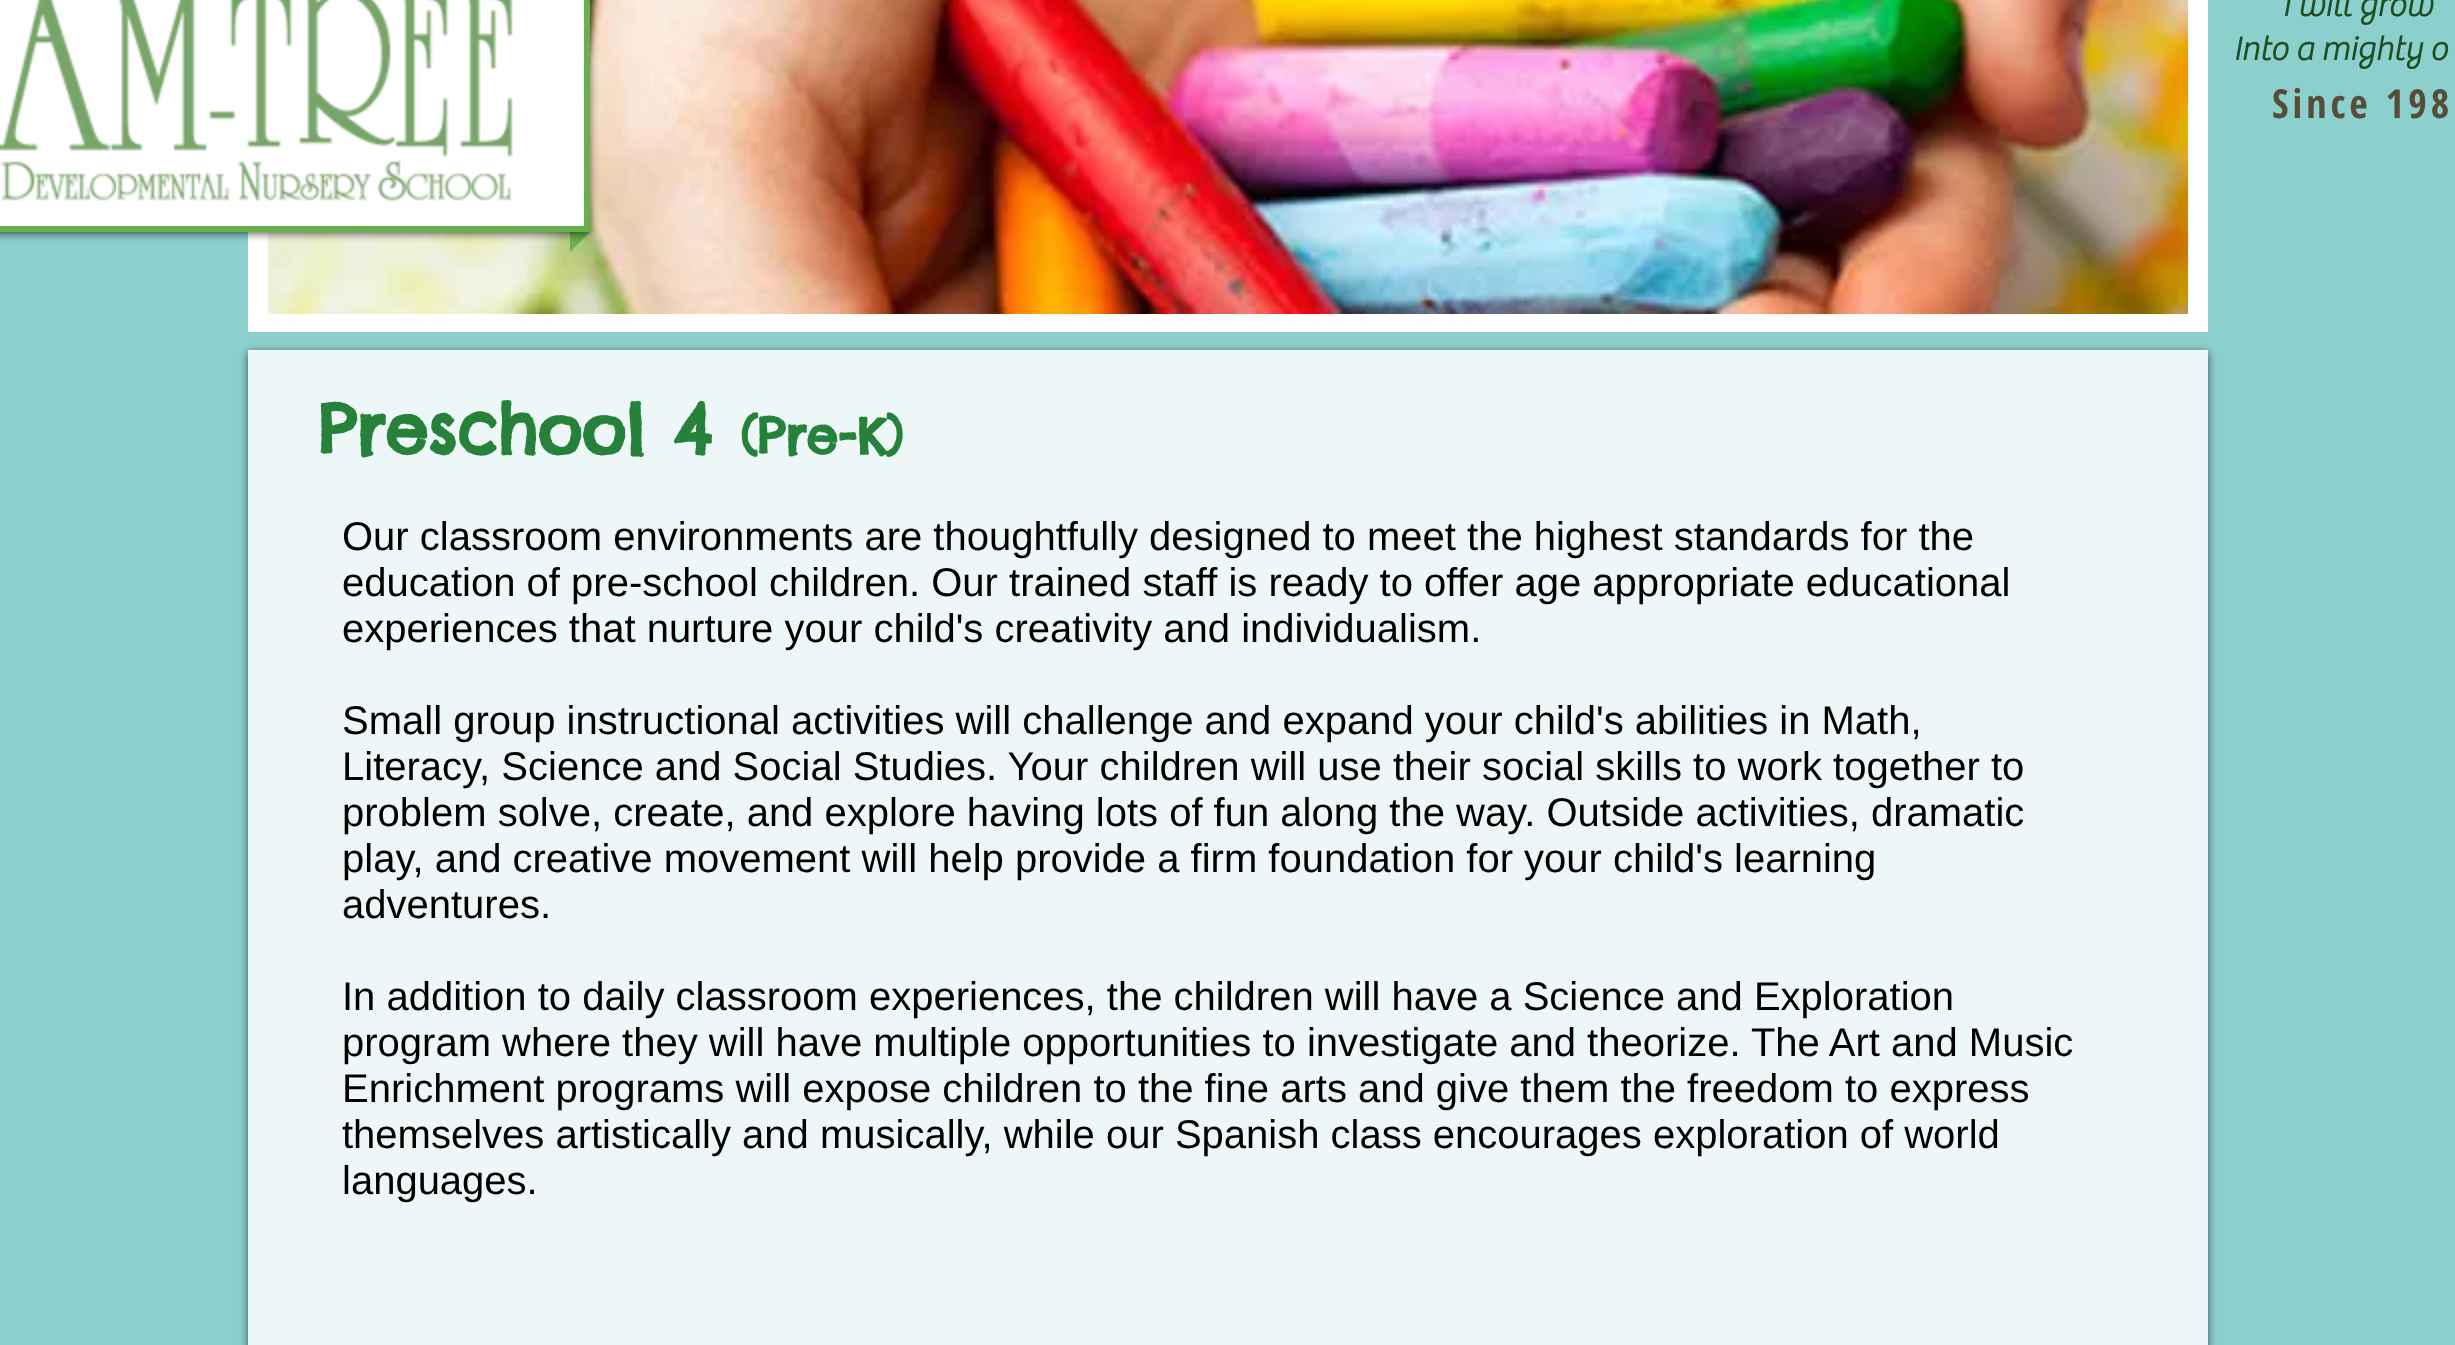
<svg xmlns="http://www.w3.org/2000/svg" width="2455" height="1345" viewBox="0 0 2455 1345">
  <rect width="100%" height="100%" fill="#8bd0cd"/>
  <path d="M248 0h1960v332H248z" fill="#fff"/>
  <image x="268" y="0" width="1920" height="314" href="img/2.png"/>
  <path d="M570 232H590L570 252Z" fill="#68b04d"/>
  <path d="M-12 -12h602v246H-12z" fill="#00000099" filter="blur(4px)"/>
  <path d="M-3 -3h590v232H-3z" fill="#fff" stroke="#68b04d" stroke-width="6"/>
  <image x="0" y="0" width="513" height="202" href="img/1.png"/>
  <path d="M248 352h1960v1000H248z" fill="#00000099" filter="blur(4px)"/>
  <path d="M248 350h1960v995H248z" fill="#eef7f7"/>
  <g font-family="'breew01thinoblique'" font-size="34" font-weight="bold" fill="#204d22">
    <text x="2282" y="16">I will grow</text>
    <text x="2233" y="60">Into a mighty o</text>
  </g>
  <text x="2272" y="118" font-family="Open Sans Condensed" font-size="40" font-weight="bold" letter-spacing="4" fill="#574c37">Since 198</text>
  <text x="318" y="454" font-family="Chelsea Market" font-size="68" font-weight="bold" fill="#26823a">Preschool 4</text>
  <text x="740" y="454" font-family="Chelsea Market" font-size="50" font-weight="bold" fill="#26823a">(Pre-K)</text>
  <g font-family="Liberation Sans" font-size="40" fill="#000">
    <text x="342" y="550">Our classroom environments are thoughtfully designed to meet the highest standards for the</text>
    <text x="342" y="596">education of pre-school children. Our trained staff is ready to offer age appropriate educational</text>
    <text x="342" y="642">experiences that nurture your child's creativity and individualism.</text>
    <text x="342" y="734">Small group instructional activities will challenge and expand your child's abilities in Math,</text>
    <text x="342" y="780">Literacy, Science and Social Studies. Your children will use their social skills to work together to</text>
    <text x="342" y="826">problem solve, create, and explore having lots of fun along the way. Outside activities, dramatic</text>
    <text x="342" y="872">play, and creative movement will help provide a firm foundation for your child's learning</text>
    <text x="342" y="918">adventures.</text>
    <text x="342" y="1010">In addition to daily classroom experiences, the children will have a Science and Exploration</text>
    <text x="342" y="1056">program where they will have multiple opportunities to investigate and theorize. The Art and Music</text>
    <text x="342" y="1102">Enrichment programs will expose children to the fine arts and give them the freedom to express</text>
    <text x="342" y="1148">themselves artistically and musically, while our Spanish class encourages exploration of world</text>
    <text x="342" y="1194">languages.</text>
  </g>
</svg>
